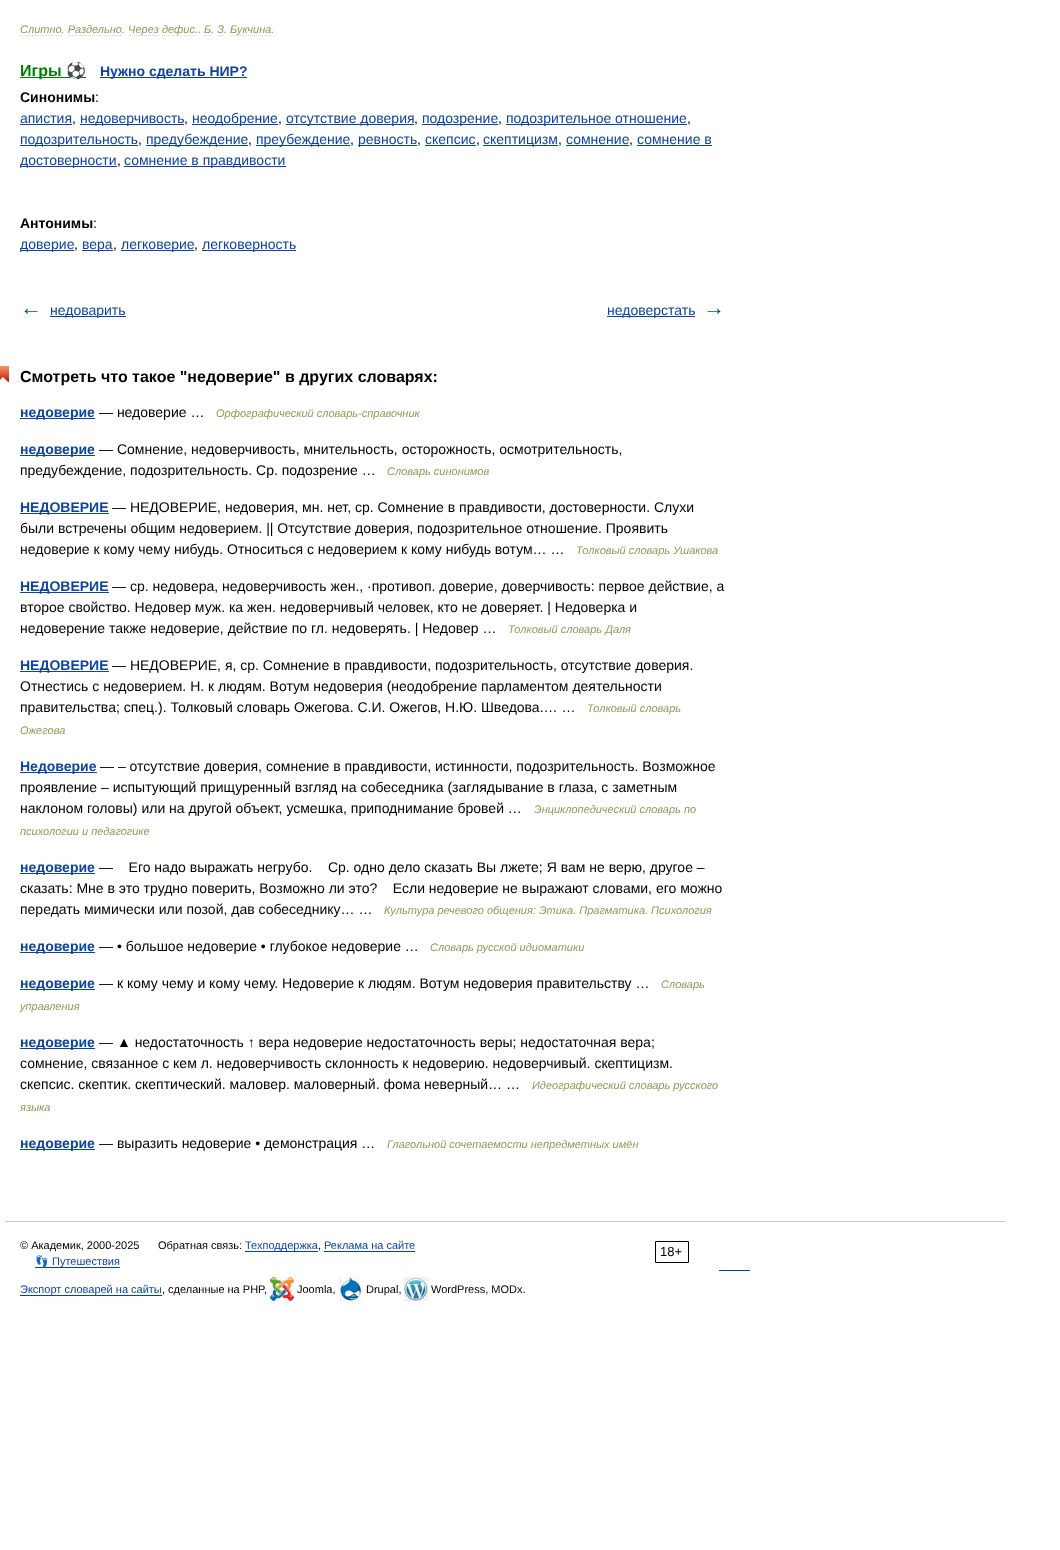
<svg xmlns="http://www.w3.org/2000/svg" width="1060" height="1550" viewBox="0 0 1060 1550">
  <rect width="100%" height="100%" fill="#fff"/>
  <path d="M20 35.5H62" fill="none" stroke="#d9d9d9" stroke-dasharray="1 1"/>
  <path d="M68 35.5H122" fill="none" stroke="#d9d9d9" stroke-dasharray="1 1"/>
  <path d="M128 35.5H159" fill="none" stroke="#d9d9d9" stroke-dasharray="1 1"/>
  <path d="M162 35.5H195" fill="none" stroke="#d9d9d9" stroke-dasharray="1 1"/>
  <path d="M230 35.5H272" fill="none" stroke="#d9d9d9" stroke-dasharray="1 1"/>
  <path d="M20 77h66v1H20z" fill="#008000"/>
  <path d="M100 77h147v1H100z" fill="#0d44a0"/>
  <path d="M20 124h52v1H20z" fill="#0d44a0"/>
  <path d="M80 124h104v1H80z" fill="#0d44a0"/>
  <path d="M192 124h86v1H192z" fill="#0d44a0"/>
  <path d="M286 124h128v1H286z" fill="#0d44a0"/>
  <path d="M422 124h76v1H422z" fill="#0d44a0"/>
  <path d="M506 124h181v1H506z" fill="#0d44a0"/>
  <path d="M20 145h118v1H20z" fill="#0d44a0"/>
  <path d="M146 145h102v1H146z" fill="#0d44a0"/>
  <path d="M256 145h94v1H256z" fill="#0d44a0"/>
  <path d="M358 145h59v1H358z" fill="#0d44a0"/>
  <path d="M425 145h51v1H425z" fill="#0d44a0"/>
  <path d="M483 145h75v1H483z" fill="#0d44a0"/>
  <path d="M566 145h63v1H566z" fill="#0d44a0"/>
  <path d="M637 145h75v1H637z" fill="#0d44a0"/>
  <path d="M20 166h97v1H20z" fill="#0d44a0"/>
  <path d="M124 166h162v1H124z" fill="#0d44a0"/>
  <path d="M20 250h54v1H20z" fill="#0d44a0"/>
  <path d="M82 250h31v1H82z" fill="#0d44a0"/>
  <path d="M121 250h73v1H121z" fill="#0d44a0"/>
  <path d="M202 250h94v1H202z" fill="#0d44a0"/>
  <path d="M50 316h76v1H50z" fill="#0d44a0"/>
  <path d="M607 316h88v1H607z" fill="#0d44a0"/>
  <image x="0" y="366" width="9" height="16" href="img/1.png"/>
  <path d="M20 418h75v1H20z" fill="#0d44a0"/>
  <path d="M20 455h75v1H20z" fill="#0d44a0"/>
  <path d="M20 513h89v1H20z" fill="#0d44a0"/>
  <path d="M20 592h89v1H20z" fill="#0d44a0"/>
  <path d="M20 671h89v1H20z" fill="#0d44a0"/>
  <path d="M20 772h77v1H20z" fill="#0d44a0"/>
  <path d="M20 873h75v1H20z" fill="#0d44a0"/>
  <path d="M20 952h75v1H20z" fill="#0d44a0"/>
  <path d="M20 989h75v1H20z" fill="#0d44a0"/>
  <path d="M20 1048h75v1H20z" fill="#0d44a0"/>
  <path d="M20 1149h75v1H20z" fill="#0d44a0"/>
  <path d="M5 1221h1000v1H5z" fill="#c7c7c7"/>
  <path d="M245 1251h73v1H245z" fill="#04a"/>
  <path d="M324 1251h91v1H324z" fill="#04a"/>
  <path d="M655.5 1241.5h33v21H655.5z" fill="none" stroke="#000"/>
  <path d="M35 1267h85v1H35z" fill="#04a"/>
  <path d="M719 1270h31v1H719z" fill="#04a"/>
  <path d="M20 1295h142v1H20z" fill="#04a"/>
  <image x="270" y="1277" width="24" height="24" href="img/2.png"/>
  <image x="339" y="1277" width="24" height="24" href="img/3.png"/>
  <image x="404" y="1277" width="24" height="24" href="img/4.png"/>
  <g font-family="Liberation Sans" font-size="11" font-style="italic" fill="#939756">
    <text x="20" y="33">Слитно. Раздельно.</text>
    <text x="128" y="33">Через</text>
    <text x="162" y="33">дефис.. Б. З.</text>
  </g>
  <path d="M204 35.5H205M206 35.5H207M208 35.5H209M210 35.5H211M217 35.5H218M219 35.5H220M221 35.5H222M223 35.5H224" fill="none" stroke="#d9d9d9"/>
  <text x="230" y="33" font-family="Liberation Sans" font-size="11" font-style="italic" fill="#939756">Букчина.</text>
  <text x="20" y="76" font-family="Liberation Sans" font-size="16" font-weight="bold" fill="#008000">Игры</text>
  <text x="66" y="76" font-family="Noto Color Emoji" font-size="16" font-weight="bold" fill="#008000">⚽</text>
  <text x="100" y="76" font-family="Liberation Sans" font-size="14" font-weight="bold" fill="#0d44a0">Нужно сделать НИР?</text>
  <text x="20" y="102" font-family="Liberation Sans" font-size="14" font-weight="bold" fill="#000">Синонимы</text>
  <text x="95" y="102" font-family="Liberation Sans" font-size="14" fill="#000">:</text>
  <text x="20" y="123" font-family="Liberation Sans" font-size="14" fill="#0d44a0">апистия</text>
  <text x="72" y="123" font-family="Liberation Sans" font-size="14" fill="#000">,</text>
  <text x="80" y="123" font-family="Liberation Sans" font-size="14" fill="#0d44a0">недоверчивость</text>
  <text x="184" y="123" font-family="Liberation Sans" font-size="14" fill="#000">,</text>
  <text x="192" y="123" font-family="Liberation Sans" font-size="14" fill="#0d44a0">неодобрение</text>
  <text x="278" y="123" font-family="Liberation Sans" font-size="14" fill="#000">,</text>
  <text x="286" y="123" font-family="Liberation Sans" font-size="14" fill="#0d44a0">отсутствие доверия</text>
  <text x="414" y="123" font-family="Liberation Sans" font-size="14" fill="#000">,</text>
  <text x="422" y="123" font-family="Liberation Sans" font-size="14" fill="#0d44a0">подозрение</text>
  <text x="498" y="123" font-family="Liberation Sans" font-size="14" fill="#000">,</text>
  <text x="506" y="123" font-family="Liberation Sans" font-size="14" fill="#0d44a0">подозрительное отношение</text>
  <text x="687" y="123" font-family="Liberation Sans" font-size="14" fill="#000">,</text>
  <text x="20" y="144" font-family="Liberation Sans" font-size="14" fill="#0d44a0">подозрительность</text>
  <text x="138" y="144" font-family="Liberation Sans" font-size="14" fill="#000">,</text>
  <text x="146" y="144" font-family="Liberation Sans" font-size="14" fill="#0d44a0">предубеждение</text>
  <text x="248" y="144" font-family="Liberation Sans" font-size="14" fill="#000">,</text>
  <text x="256" y="144" font-family="Liberation Sans" font-size="14" fill="#0d44a0">преубеждение</text>
  <text x="350" y="144" font-family="Liberation Sans" font-size="14" fill="#000">,</text>
  <text x="358" y="144" font-family="Liberation Sans" font-size="14" fill="#0d44a0">ревность</text>
  <text x="417" y="144" font-family="Liberation Sans" font-size="14" fill="#000">,</text>
  <text x="425" y="144" font-family="Liberation Sans" font-size="14" fill="#0d44a0">скепсис</text>
  <text x="476" y="144" font-family="Liberation Sans" font-size="14" fill="#000">,</text>
  <text x="483" y="144" font-family="Liberation Sans" font-size="14" fill="#0d44a0">скептицизм</text>
  <text x="558" y="144" font-family="Liberation Sans" font-size="14" fill="#000">,</text>
  <text x="566" y="144" font-family="Liberation Sans" font-size="14" fill="#0d44a0">сомнение</text>
  <text x="629" y="144" font-family="Liberation Sans" font-size="14" fill="#000">,</text>
  <g font-family="Liberation Sans" font-size="14" fill="#0d44a0">
    <text x="637" y="144">сомнение в</text>
    <text x="20" y="165">достоверности</text>
  </g>
  <text x="117" y="165" font-family="Liberation Sans" font-size="14" fill="#000">,</text>
  <text x="124" y="165" font-family="Liberation Sans" font-size="14" fill="#0d44a0">сомнение в правдивости</text>
  <text x="20" y="228" font-family="Liberation Sans" font-size="14" font-weight="bold" fill="#000">Антонимы</text>
  <text x="93" y="228" font-family="Liberation Sans" font-size="14" fill="#000">:</text>
  <text x="20" y="249" font-family="Liberation Sans" font-size="14" fill="#0d44a0">доверие</text>
  <text x="74" y="249" font-family="Liberation Sans" font-size="14" fill="#000">,</text>
  <text x="82" y="249" font-family="Liberation Sans" font-size="14" fill="#0d44a0">вера</text>
  <text x="113" y="249" font-family="Liberation Sans" font-size="14" fill="#000">,</text>
  <text x="121" y="249" font-family="Liberation Sans" font-size="14" fill="#0d44a0">легковерие</text>
  <text x="194" y="249" font-family="Liberation Sans" font-size="14" fill="#000">,</text>
  <text x="202" y="249" font-family="Liberation Sans" font-size="14" fill="#0d44a0">легковерность</text>
  <text x="20" y="315" font-family="Liberation Sans" font-size="22" font-weight="bold" fill="#0d44a0">←</text>
  <g font-family="Liberation Sans" font-size="14" fill="#0d44a0">
    <text x="50" y="315">недоварить</text>
    <text x="607" y="315">недоверстать</text>
  </g>
  <text x="703" y="315" font-family="Liberation Sans" font-size="22" font-weight="bold" fill="#0d44a0">→</text>
  <text x="20" y="382" font-family="Liberation Sans" font-size="16" font-weight="bold" fill="#000">Смотреть что такое "недоверие" в других словарях:</text>
  <text x="20" y="417" font-family="Liberation Sans" font-size="14" font-weight="bold" fill="#0d44a0">недоверие</text>
  <text x="99" y="417" font-family="Liberation Sans" font-size="14" fill="#000">— недоверие …</text>
  <text x="216" y="417" font-family="Liberation Sans" font-size="11" font-style="italic" fill="#939756">Орфографический словарь-справочник</text>
  <text x="20" y="454" font-family="Liberation Sans" font-size="14" font-weight="bold" fill="#0d44a0">недоверие</text>
  <g font-family="Liberation Sans" font-size="14" fill="#000">
    <text x="99" y="454">— Сомнение, недоверчивость, мнительность, осторожность, осмотрительность,</text>
    <text x="20" y="475">предубеждение, подозрительность. Ср. подозрение …</text>
  </g>
  <text x="387" y="475" font-family="Liberation Sans" font-size="11" font-style="italic" fill="#939756">Словарь синонимов</text>
  <text x="20" y="512" font-family="Liberation Sans" font-size="14" font-weight="bold" fill="#0d44a0">НЕДОВЕРИЕ</text>
  <g font-family="Liberation Sans" font-size="14" fill="#000">
    <text x="112" y="512">— НЕДОВЕРИЕ, недоверия, мн. нет, ср. Сомнение в правдивости, достоверности. Слухи</text>
    <text x="20" y="533">были встречены общим недоверием. || Отсутствие доверия, подозрительное отношение. Проявить</text>
    <text x="20" y="554">недоверие к кому чему нибудь. Относиться с недоверием к кому нибудь вотум… …</text>
  </g>
  <text x="576" y="554" font-family="Liberation Sans" font-size="11" font-style="italic" fill="#939756">Толковый словарь Ушакова</text>
  <text x="20" y="591" font-family="Liberation Sans" font-size="14" font-weight="bold" fill="#0d44a0">НЕДОВЕРИЕ</text>
  <g font-family="Liberation Sans" font-size="14" fill="#000">
    <text x="112" y="591">— ср. недовера, недоверчивость жен., ·противоп. доверие, доверчивость: первое действие, а</text>
    <text x="20" y="612">второе свойство. Недовер муж. ка жен. недоверчивый человек, кто не доверяет. | Недоверка и</text>
    <text x="20" y="633">недоверение также недоверие, действие по гл. недоверять. | Недовер …</text>
  </g>
  <text x="508" y="633" font-family="Liberation Sans" font-size="11" font-style="italic" fill="#939756">Толковый словарь Даля</text>
  <text x="20" y="670" font-family="Liberation Sans" font-size="14" font-weight="bold" fill="#0d44a0">НЕДОВЕРИЕ</text>
  <g font-family="Liberation Sans" font-size="14" fill="#000">
    <text x="112" y="670">— НЕДОВЕРИЕ, я, ср. Сомнение в правдивости, подозрительность, отсутствие доверия.</text>
    <text x="20" y="691">Отнестись с недоверием. Н. к людям. Вотум недоверия (неодобрение парламентом деятельности</text>
    <text x="20" y="712">правительства; спец.). Толковый словарь Ожегова. С.И. Ожегов, Н.Ю. Шведова.… …</text>
  </g>
  <g font-family="Liberation Sans" font-size="11" font-style="italic" fill="#939756">
    <text x="587" y="712">Толковый словарь</text>
    <text x="20" y="734">Ожегова</text>
  </g>
  <text x="20" y="771" font-family="Liberation Sans" font-size="14" font-weight="bold" fill="#0d44a0">Недоверие</text>
  <g font-family="Liberation Sans" font-size="14" fill="#000">
    <text x="100" y="771">— – отсутствие доверия, сомнение в правдивости, истинности, подозрительность. Возможное</text>
    <text x="20" y="792">проявление – испытующий прищуренный взгляд на собеседника (заглядывание в глаза, с заметным</text>
    <text x="20" y="813">наклоном головы) или на другой объект, усмешка, приподнимание бровей …</text>
  </g>
  <g font-family="Liberation Sans" font-size="11" font-style="italic" fill="#939756">
    <text x="534" y="813">Энциклопедический словарь по</text>
    <text x="20" y="835">психологии и педагогике</text>
  </g>
  <text x="20" y="872" font-family="Liberation Sans" font-size="14" font-weight="bold" fill="#0d44a0">недоверие</text>
  <g font-family="Liberation Sans" font-size="14" fill="#000">
    <text x="99" y="872" xml:space="preserve">—    Его надо выражать негрубо.    Ср. одно дело сказать Вы лжете; Я вам не верю, другое –</text>
    <text x="20" y="893" xml:space="preserve">сказать: Мне в это трудно поверить, Возможно ли это?    Если недоверие не выражают словами, его можно</text>
    <text x="20" y="914">передать мимически или позой, дав собеседнику… …</text>
  </g>
  <text x="384" y="914" font-family="Liberation Sans" font-size="11" font-style="italic" fill="#939756">Культура речевого общения: Этика. Прагматика. Психология</text>
  <text x="20" y="951" font-family="Liberation Sans" font-size="14" font-weight="bold" fill="#0d44a0">недоверие</text>
  <text x="99" y="951" font-family="Liberation Sans" font-size="14" fill="#000">— • большое недоверие • глубокое недоверие …</text>
  <text x="430" y="951" font-family="Liberation Sans" font-size="11" font-style="italic" fill="#939756">Словарь русской идиоматики</text>
  <text x="20" y="988" font-family="Liberation Sans" font-size="14" font-weight="bold" fill="#0d44a0">недоверие</text>
  <text x="99" y="988" font-family="Liberation Sans" font-size="14" fill="#000">— к кому чему и кому чему. Недоверие к людям. Вотум недоверия правительству …</text>
  <g font-family="Liberation Sans" font-size="11" font-style="italic" fill="#939756">
    <text x="661" y="988">Словарь</text>
    <text x="20" y="1010">управления</text>
  </g>
  <text x="20" y="1047" font-family="Liberation Sans" font-size="14" font-weight="bold" fill="#0d44a0">недоверие</text>
  <g font-family="Liberation Sans" font-size="14" fill="#000">
    <text x="99" y="1047">— ▲ недостаточность ↑ вера недоверие недостаточность веры; недостаточная вера;</text>
    <text x="20" y="1068">сомнение, связанное с кем л. недоверчивость склонность к недоверию. недоверчивый. скeптицизм.</text>
    <text x="20" y="1089">скепсис. скептик. скептический. маловер. маловерный. фома неверный… …</text>
  </g>
  <g font-family="Liberation Sans" font-size="11" font-style="italic" fill="#939756">
    <text x="532" y="1089">Идеографический словарь русского</text>
    <text x="20" y="1111">языка</text>
  </g>
  <text x="20" y="1148" font-family="Liberation Sans" font-size="14" font-weight="bold" fill="#0d44a0">недоверие</text>
  <text x="99" y="1148" font-family="Liberation Sans" font-size="14" fill="#000">— выразить недоверие • демонстрация …</text>
  <text x="387" y="1148" font-family="Liberation Sans" font-size="11" font-style="italic" fill="#939756">Глагольной сочетаемости непредметных имён</text>
  <g font-family="Liberation Sans" font-size="11" fill="#000">
    <text x="20" y="1249">© Академик, 2000-2025</text>
    <text x="158" y="1249">Обратная связь:</text>
  </g>
  <text x="245" y="1249" font-family="Liberation Sans" font-size="11" fill="#0d44a0">Техподдержка</text>
  <text x="318" y="1249" font-family="Liberation Sans" font-size="11" fill="#000">,</text>
  <text x="324" y="1249" font-family="Liberation Sans" font-size="11" fill="#0d44a0">Реклама на сайте</text>
  <text x="660" y="1256" font-family="Liberation Sans" font-size="13" fill="#000">18+</text>
  <text x="35" y="1265" font-family="Noto Color Emoji" font-size="11" fill="#0d44a0">👣</text>
  <g font-family="Liberation Sans" font-size="11" fill="#0d44a0">
    <text x="52" y="1265">Путешествия</text>
    <text x="20" y="1293">Экспорт словарей на сайты</text>
  </g>
  <g font-family="Liberation Sans" font-size="11" fill="#000">
    <text x="162" y="1293">, сделанные на PHP,</text>
    <text x="297" y="1293">Joomla,</text>
    <text x="366" y="1293">Drupal,</text>
    <text x="431" y="1293">WordPress, MODx.</text>
  </g>
</svg>
